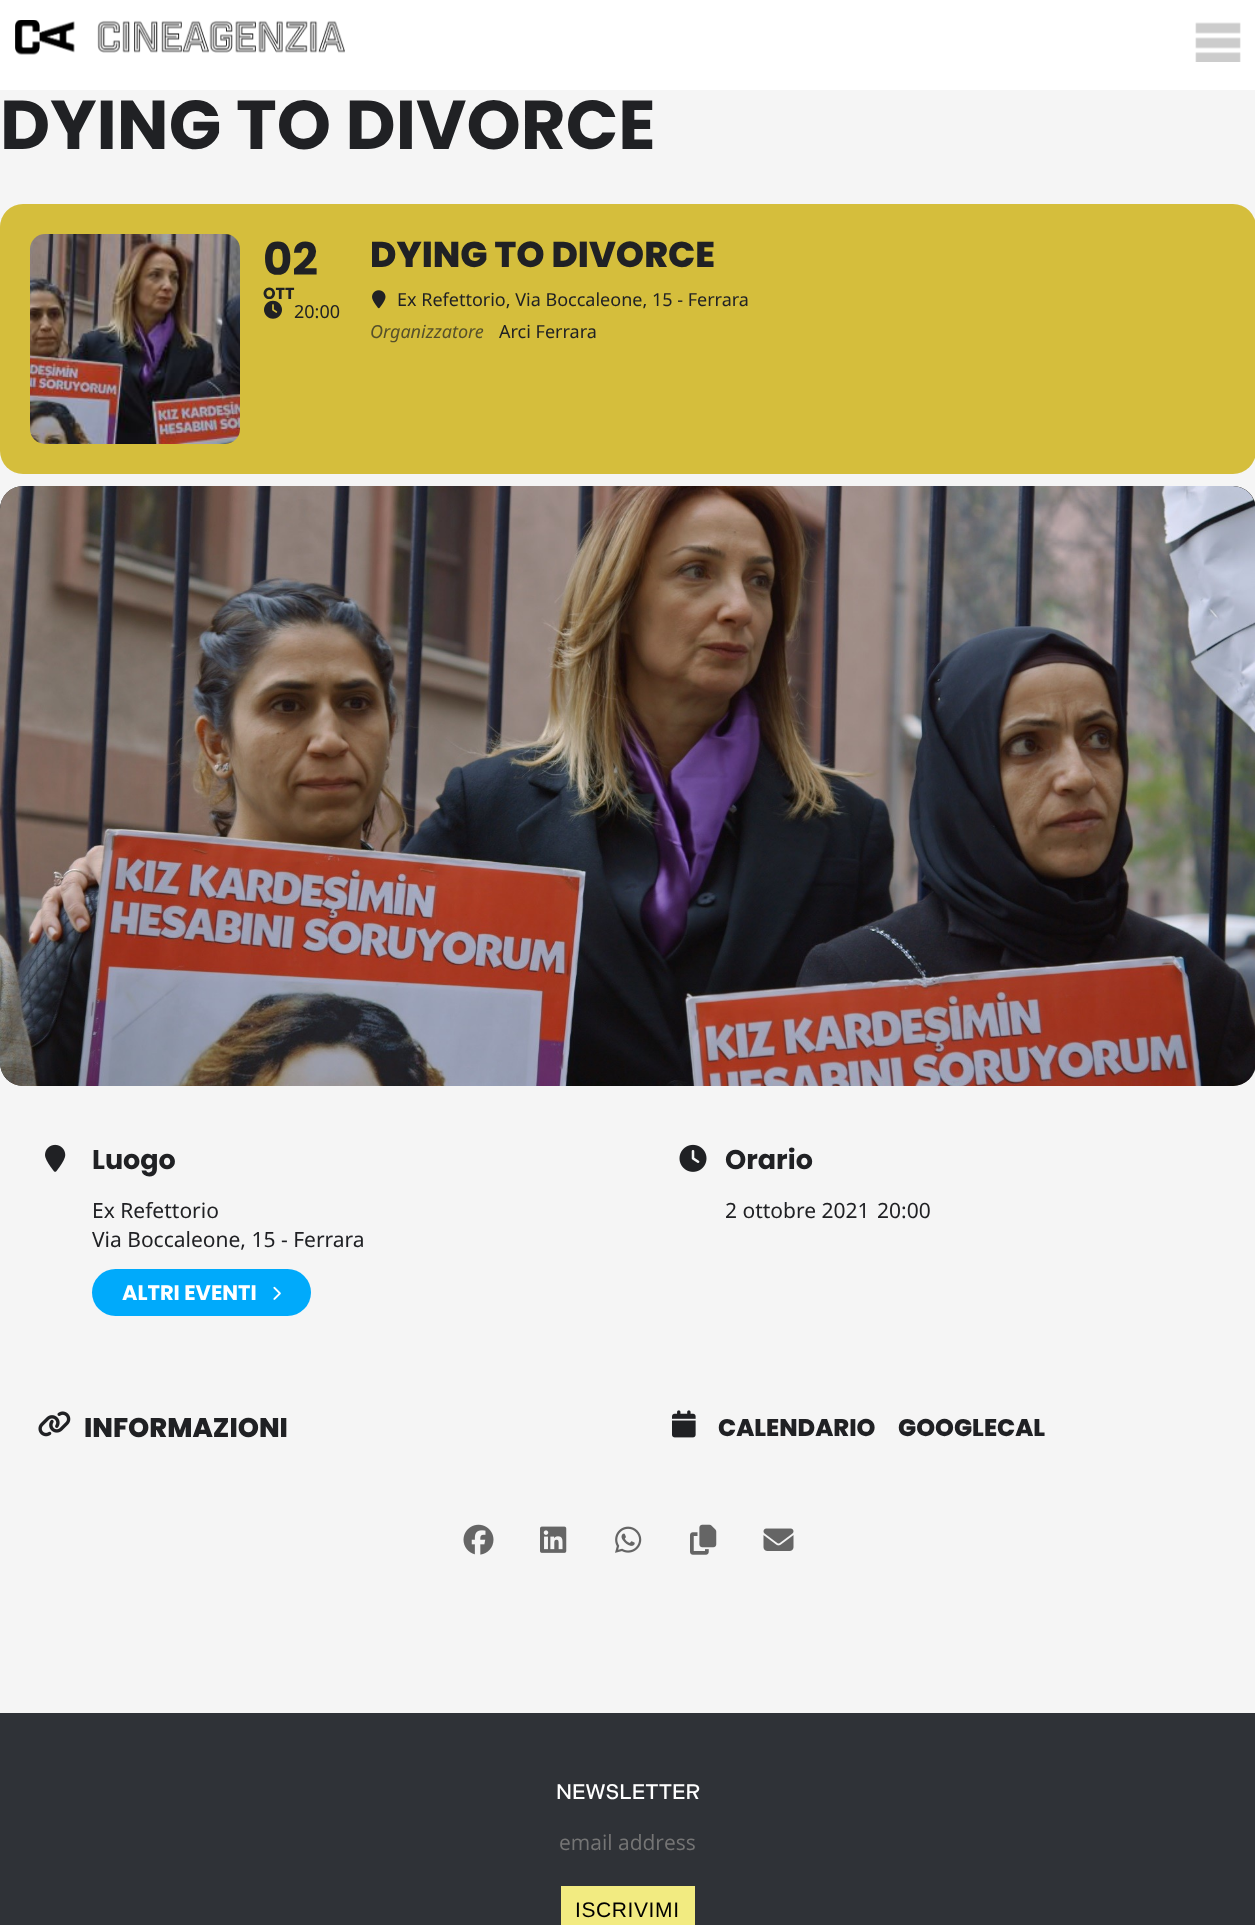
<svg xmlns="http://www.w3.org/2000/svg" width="1255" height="1925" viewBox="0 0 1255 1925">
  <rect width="100%" height="100%" fill="#f5f5f5"/>
  <path d="M0 0h1255v90H0z" fill="#fff"/>
  <image x="15" y="20" width="330" height="35" href="img/1.png"/>
  <image x="1195" y="22" width="46" height="40" href="img/2.png"/>
  <rect y="204" width="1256" height="270" rx="23" fill="#d5be3c"/>
  <image x="30" y="234" width="210" height="210" href="img/3.png"/>
  <image x="264" y="300" width="18" height="19" href="img/4.png"/>
  <image x="372" y="290" width="14" height="19" href="img/5.png"/>
  <rect y="486" width="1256" height="600" rx="23" fill="#333"/>
  <image x="0" y="486" width="1255" height="600" href="img/6.png"/>
  <image x="45" y="1144" width="21" height="28" href="img/7.png"/>
  <rect x="92" y="1269" width="219" height="47" rx="23.5" fill="#00aafb"/>
  <image x="273" y="1286" width="8" height="14" href="img/8.png"/>
  <image x="679" y="1144" width="28" height="28" href="img/9.png"/>
  <image x="38" y="1411" width="33" height="26" href="img/10.png"/>
  <image x="672" y="1410" width="24" height="28" href="img/11.png"/>
  <image x="463" y="1524" width="31" height="31" href="img/12.png"/>
  <image x="540" y="1526" width="27" height="27" href="img/13.png"/>
  <image x="615" y="1526" width="27" height="27" href="img/14.png"/>
  <image x="690" y="1524" width="27" height="31" href="img/15.png"/>
  <image x="763" y="1528" width="31" height="23" href="img/16.png"/>
  <path d="M0 1713h1255v212H0z" fill="#2f3237"/>
  <path d="M561 1886h134v39H561z" fill="#f2eb81"/>
  <text x="0" y="149" font-family="Poppins" font-size="69" font-weight="bold" fill="#202124">DYING TO DIVORCE</text>
  <text x="263" y="275" font-family="Poppins" font-size="45" font-weight="bold" fill="#202124">02</text>
  <text x="263" y="299" font-family="Poppins" font-size="16" font-weight="bold" fill="#202124">OTT</text>
  <text x="294" y="318" font-family="Noto Sans" font-size="18" fill="#202124">20:00</text>
  <text x="370" y="267" font-family="Poppins" font-size="36" font-weight="800" fill="#202124">DYING TO DIVORCE</text>
  <text x="397" y="306" font-family="Noto Sans" font-size="18" fill="#202124">Ex Refettorio, Via Boccaleone, 15 - Ferrara</text>
  <text x="370" y="338" font-family="Noto Sans" font-size="18" font-style="italic" fill="#56502b">Organizzatore</text>
  <text x="499" y="338" font-family="Noto Sans" font-size="18" fill="#202124">Arci Ferrara</text>
  <text x="92" y="1169" font-family="Poppins" font-size="27" font-weight="bold" fill="#202124">Luogo</text>
  <g font-family="Noto Sans" font-size="21" fill="#202124">
    <text x="92" y="1218">Ex Refettorio</text>
    <text x="92" y="1247">Via Boccaleone, 15 - Ferrara</text>
  </g>
  <text x="122" y="1300" font-family="Poppins" font-size="21" font-weight="bold" fill="#fff">ALTRI EVENTI</text>
  <text x="725" y="1169" font-family="Poppins" font-size="27" font-weight="bold" fill="#202124">Orario</text>
  <g font-family="Noto Sans" font-size="21" fill="#202124">
    <text x="725" y="1218">2 ottobre 2021</text>
    <text x="877" y="1218">20:00</text>
  </g>
  <text x="84" y="1437" font-family="Poppins" font-size="27" font-weight="800" fill="#202124">INFORMAZIONI</text>
  <g font-family="Poppins" font-size="24" font-weight="800" fill="#202124">
    <text x="718" y="1436">CALENDARIO</text>
    <text x="898" y="1436">GOOGLECAL</text>
  </g>
  <text x="556" y="1799" font-family="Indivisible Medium" font-size="21" font-weight="500" fill="#fff">NEWSLETTER</text>
  <text x="559" y="1850" font-family="Open Sans" font-size="21" fill="#757575">email address</text>
  <text x="575" y="1917" font-family="Liberation Sans" font-size="21" letter-spacing="0.6" fill="#000">ISCRIVIMI</text>
</svg>
